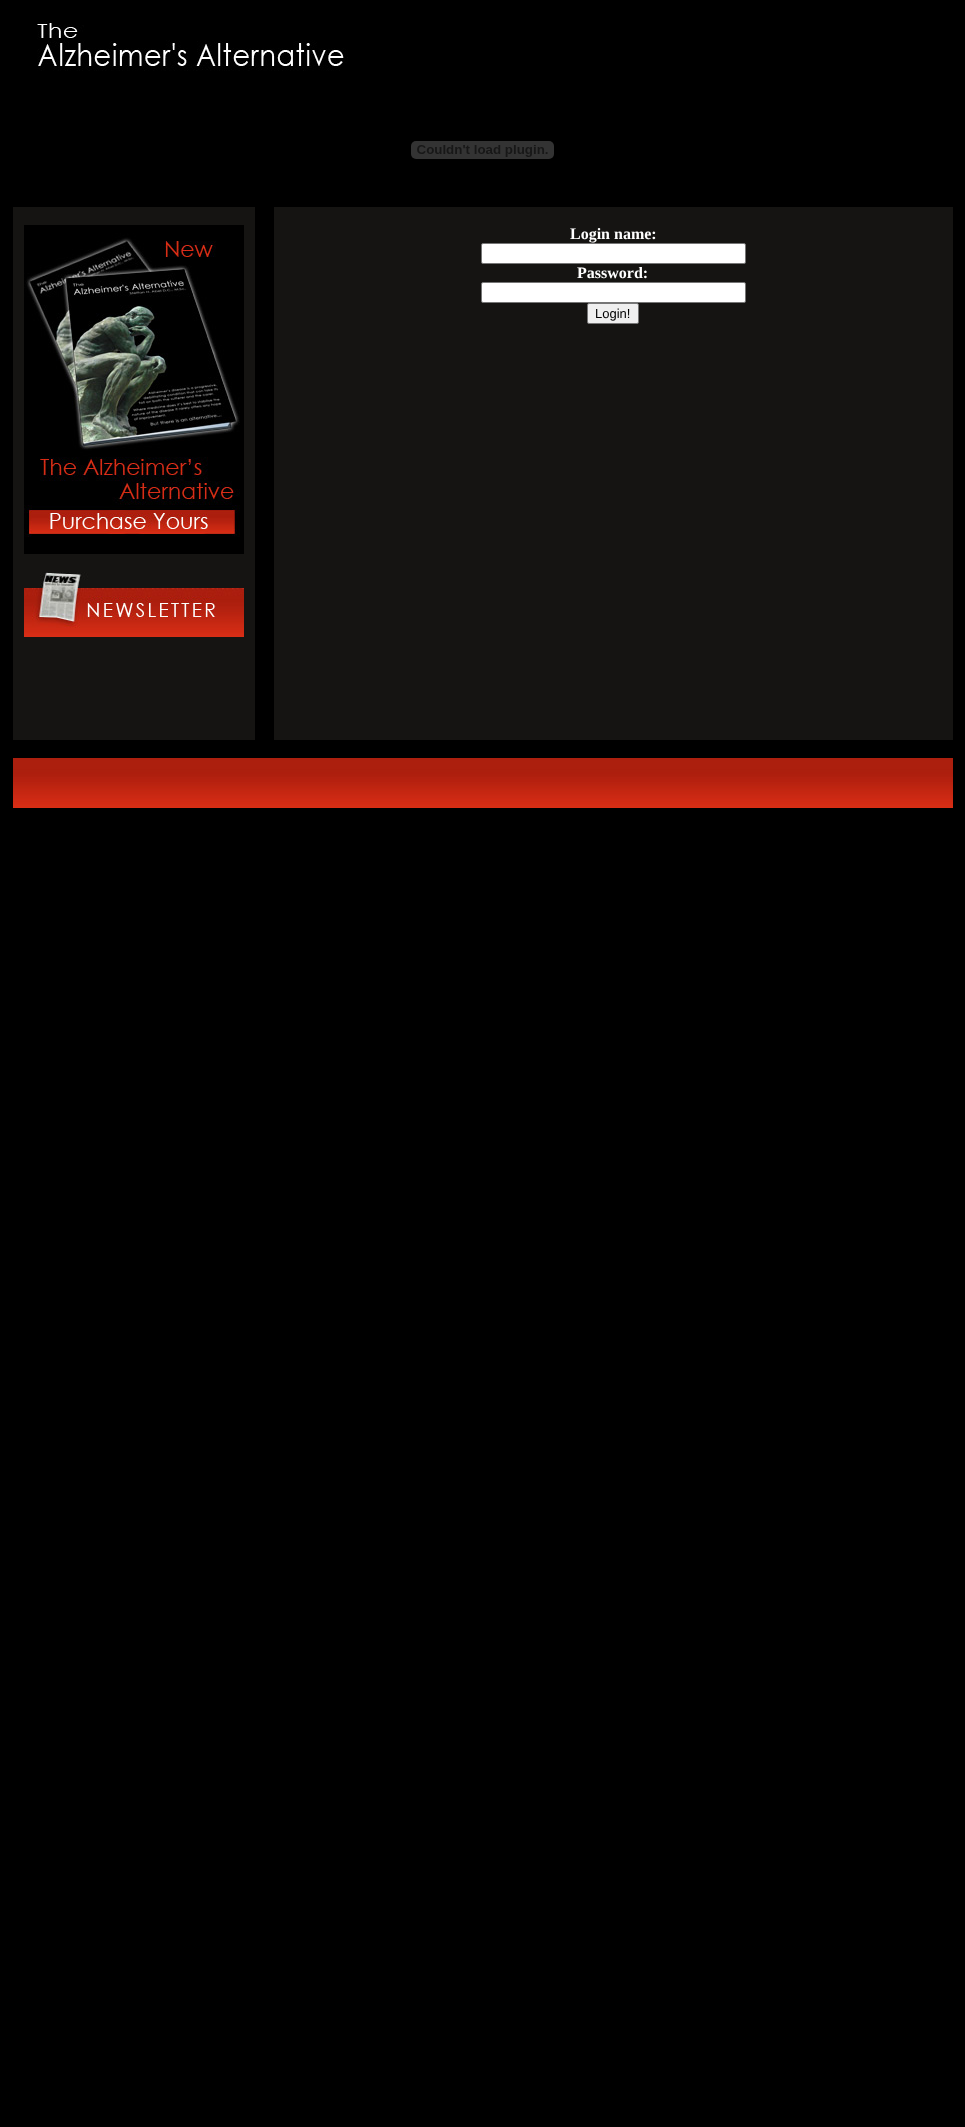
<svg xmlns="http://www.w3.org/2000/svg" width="965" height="2127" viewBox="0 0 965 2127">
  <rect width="100%" height="100%" fill="#000"/>
  <image x="37" y="21" width="311" height="50" href="img/1.png"/>
  <image x="411" y="141" width="143" height="18" href="img/2.png"/>
  <path d="M13 207h242v533H13z" fill="#151412"/>
  <image x="24" y="225" width="220" height="329" href="img/3.png"/>
  <image x="24" y="572" width="220" height="65" href="img/4.png"/>
  <path d="M274 207h679v533H274z" fill="#151412"/>
  <rect x="481.5" y="243.5" width="264" height="20" rx="1.5" fill="#fff" stroke="#767676"/>
  <rect x="481.5" y="282.5" width="264" height="20" rx="1.5" fill="#fff" stroke="#767676"/>
  <rect x="587.5" y="303.5" width="51" height="20" rx="1.5" fill="#efefef" stroke="#767676"/>
  <image x="13" y="758" width="940" height="50" href="img/5.png"/>
  <g font-family="Liberation Serif" font-size="16" font-weight="bold" fill="#fff">
    <text x="570" y="239">Login name:</text>
    <text x="577" y="278">Password:</text>
  </g>
  <text x="595" y="318" font-family="Liberation Sans" font-size="13" fill="#000">Login!</text>
</svg>
